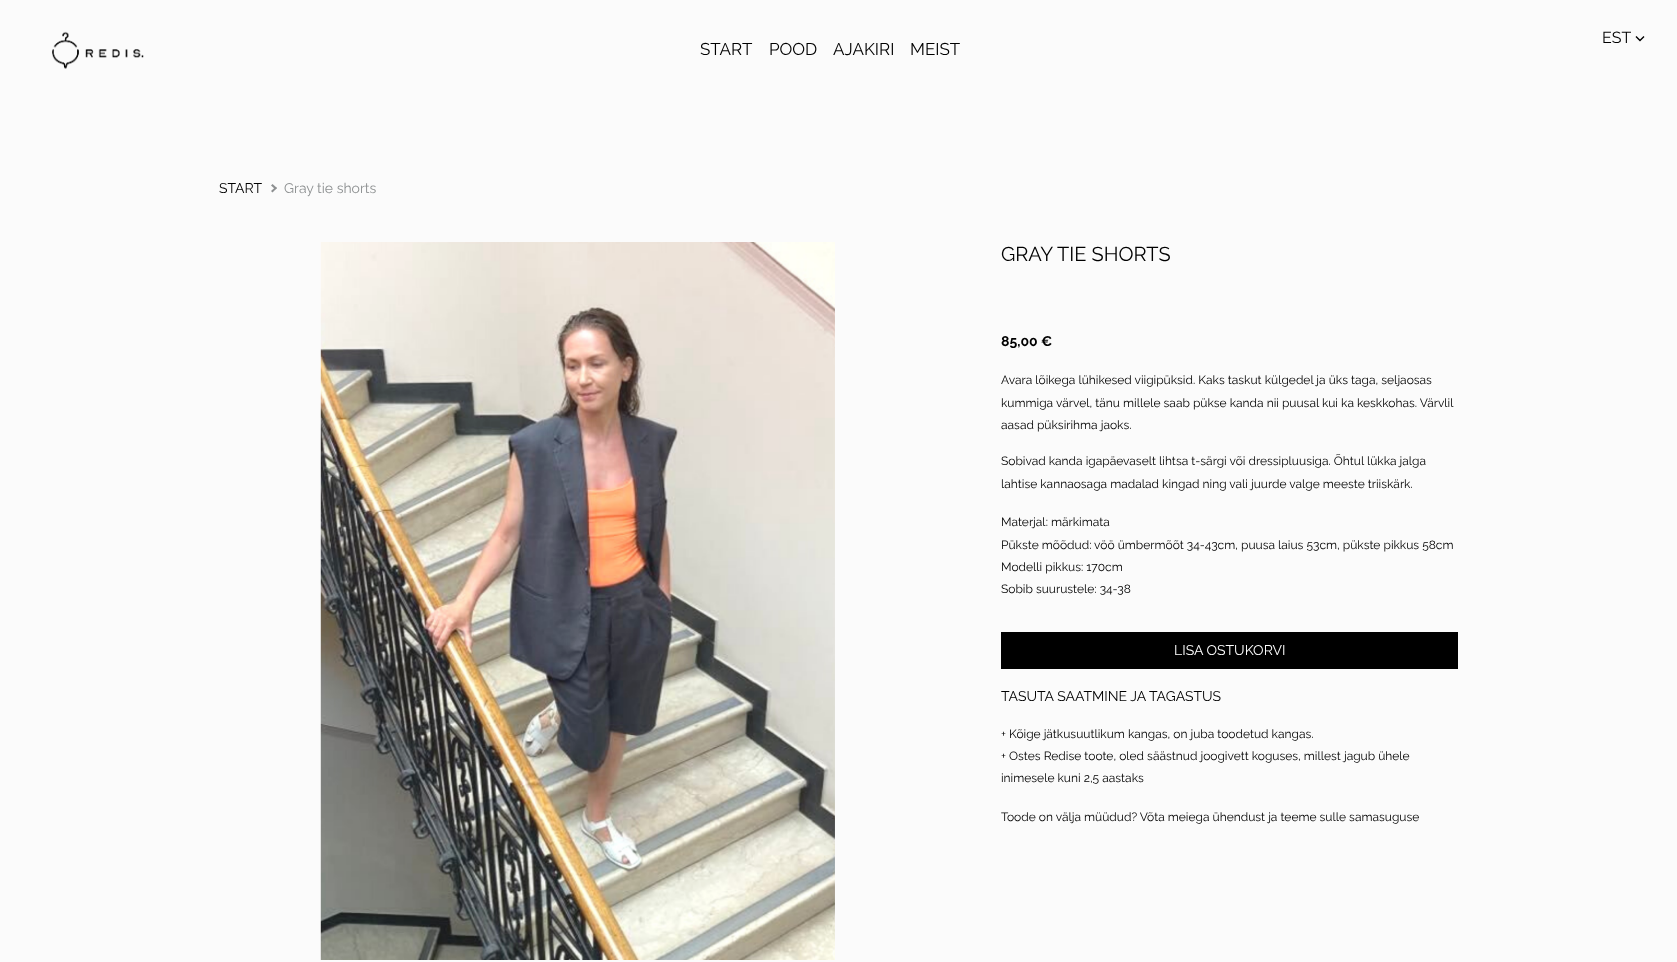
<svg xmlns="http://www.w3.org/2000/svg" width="1677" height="962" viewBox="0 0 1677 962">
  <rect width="100%" height="100%" fill="#fbfbfb"/>
  <image x="52" y="31" width="92" height="38" href="img/1.png"/>
  <path d="M1636 36.5L1640 40.5L1644 36.5" fill="none" stroke="#000" stroke-width="1.4"/>
  <path d="M271 185.5L272.5 184L277 188L275.5 189.5Z" fill="#8d9091"/>
  <path d="M271 191L275.5 187L277 188L272.5 192.5Z" fill="#8d9091"/>
  <image x="320" y="242" width="515" height="718" href="img/2.png"/>
  <path d="M1001 632h457v37H1001z" fill="#000"/>
  <text x="1602" y="43" font-family="Raleway" font-size="16" fill="#000">EST</text>
  <g font-family="Raleway" font-size="17" fill="#000">
    <text x="700" y="55">START</text>
    <text x="769" y="55">POOD</text>
    <text x="833" y="55">AJAKIRI</text>
    <text x="910" y="55">MEIST</text>
  </g>
  <text x="219" y="193" font-family="Raleway" font-size="14" fill="#000">START</text>
  <text x="284" y="193" font-family="Raleway" font-size="14" fill="#8d9091">Gray tie shorts</text>
  <text x="1001" y="261" font-family="Raleway" font-size="20" fill="#000">GRAY TIE SHORTS</text>
  <text x="1001" y="346" font-family="Raleway" font-size="14" font-weight="bold" fill="#000">85,00 €</text>
  <g font-family="Raleway" font-size="12" fill="#000">
    <text x="1001" y="384">Avara lõikega lühikesed viigipüksid. Kaks taskut külgedel ja üks taga, seljaosas</text>
    <text x="1001" y="407">kummiga</text>
    <text x="1056" y="407">värvel, tänu millele saab pükse kanda nii puusal kui ka keskkohas. Värvlil</text>
    <text x="1001" y="429">aasad püksirihma jaoks.</text>
    <text x="1001" y="465">Sobivad kanda igapäevaselt lihtsa t-särgi või dressipluusiga. Õhtul lükka jalga</text>
    <text x="1001" y="488">lahtise kannaosaga madalad kingad ning vali juurde valge meeste triiskärk.</text>
    <text x="1001" y="526">Materjal: märkimata</text>
    <text x="1001" y="549">Pükste mõõdud: vöö ümbermõõt 34-43cm, puusa laius 53cm, pükste pikkus 58cm</text>
    <text x="1001" y="571">Modelli pikkus: 170cm</text>
    <text x="1001" y="593">Sobib suurustele: 34-38</text>
  </g>
  <text x="1174" y="655" font-family="Raleway" font-size="14" fill="#fff">LISA OSTUKORVI</text>
  <text x="1001" y="701" font-family="Raleway" font-size="14" fill="#000">TASUTA SAATMINE JA TAGASTUS</text>
  <g font-family="Raleway" font-size="12" fill="#000">
    <text x="1001" y="738">+ Kõige jätkusuutlikum kangas, on juba toodetud kangas.</text>
    <text x="1001" y="760">+ Ostes Redise toote, oled säästnud joogivett koguses, millest jagub ühele</text>
    <text x="1001" y="782">inimesele kuni 2,5 aastaks</text>
    <text x="1001" y="821">Toode on välja müüdud? Võta meiega ühendust ja teeme sulle samasuguse</text>
  </g>
</svg>
